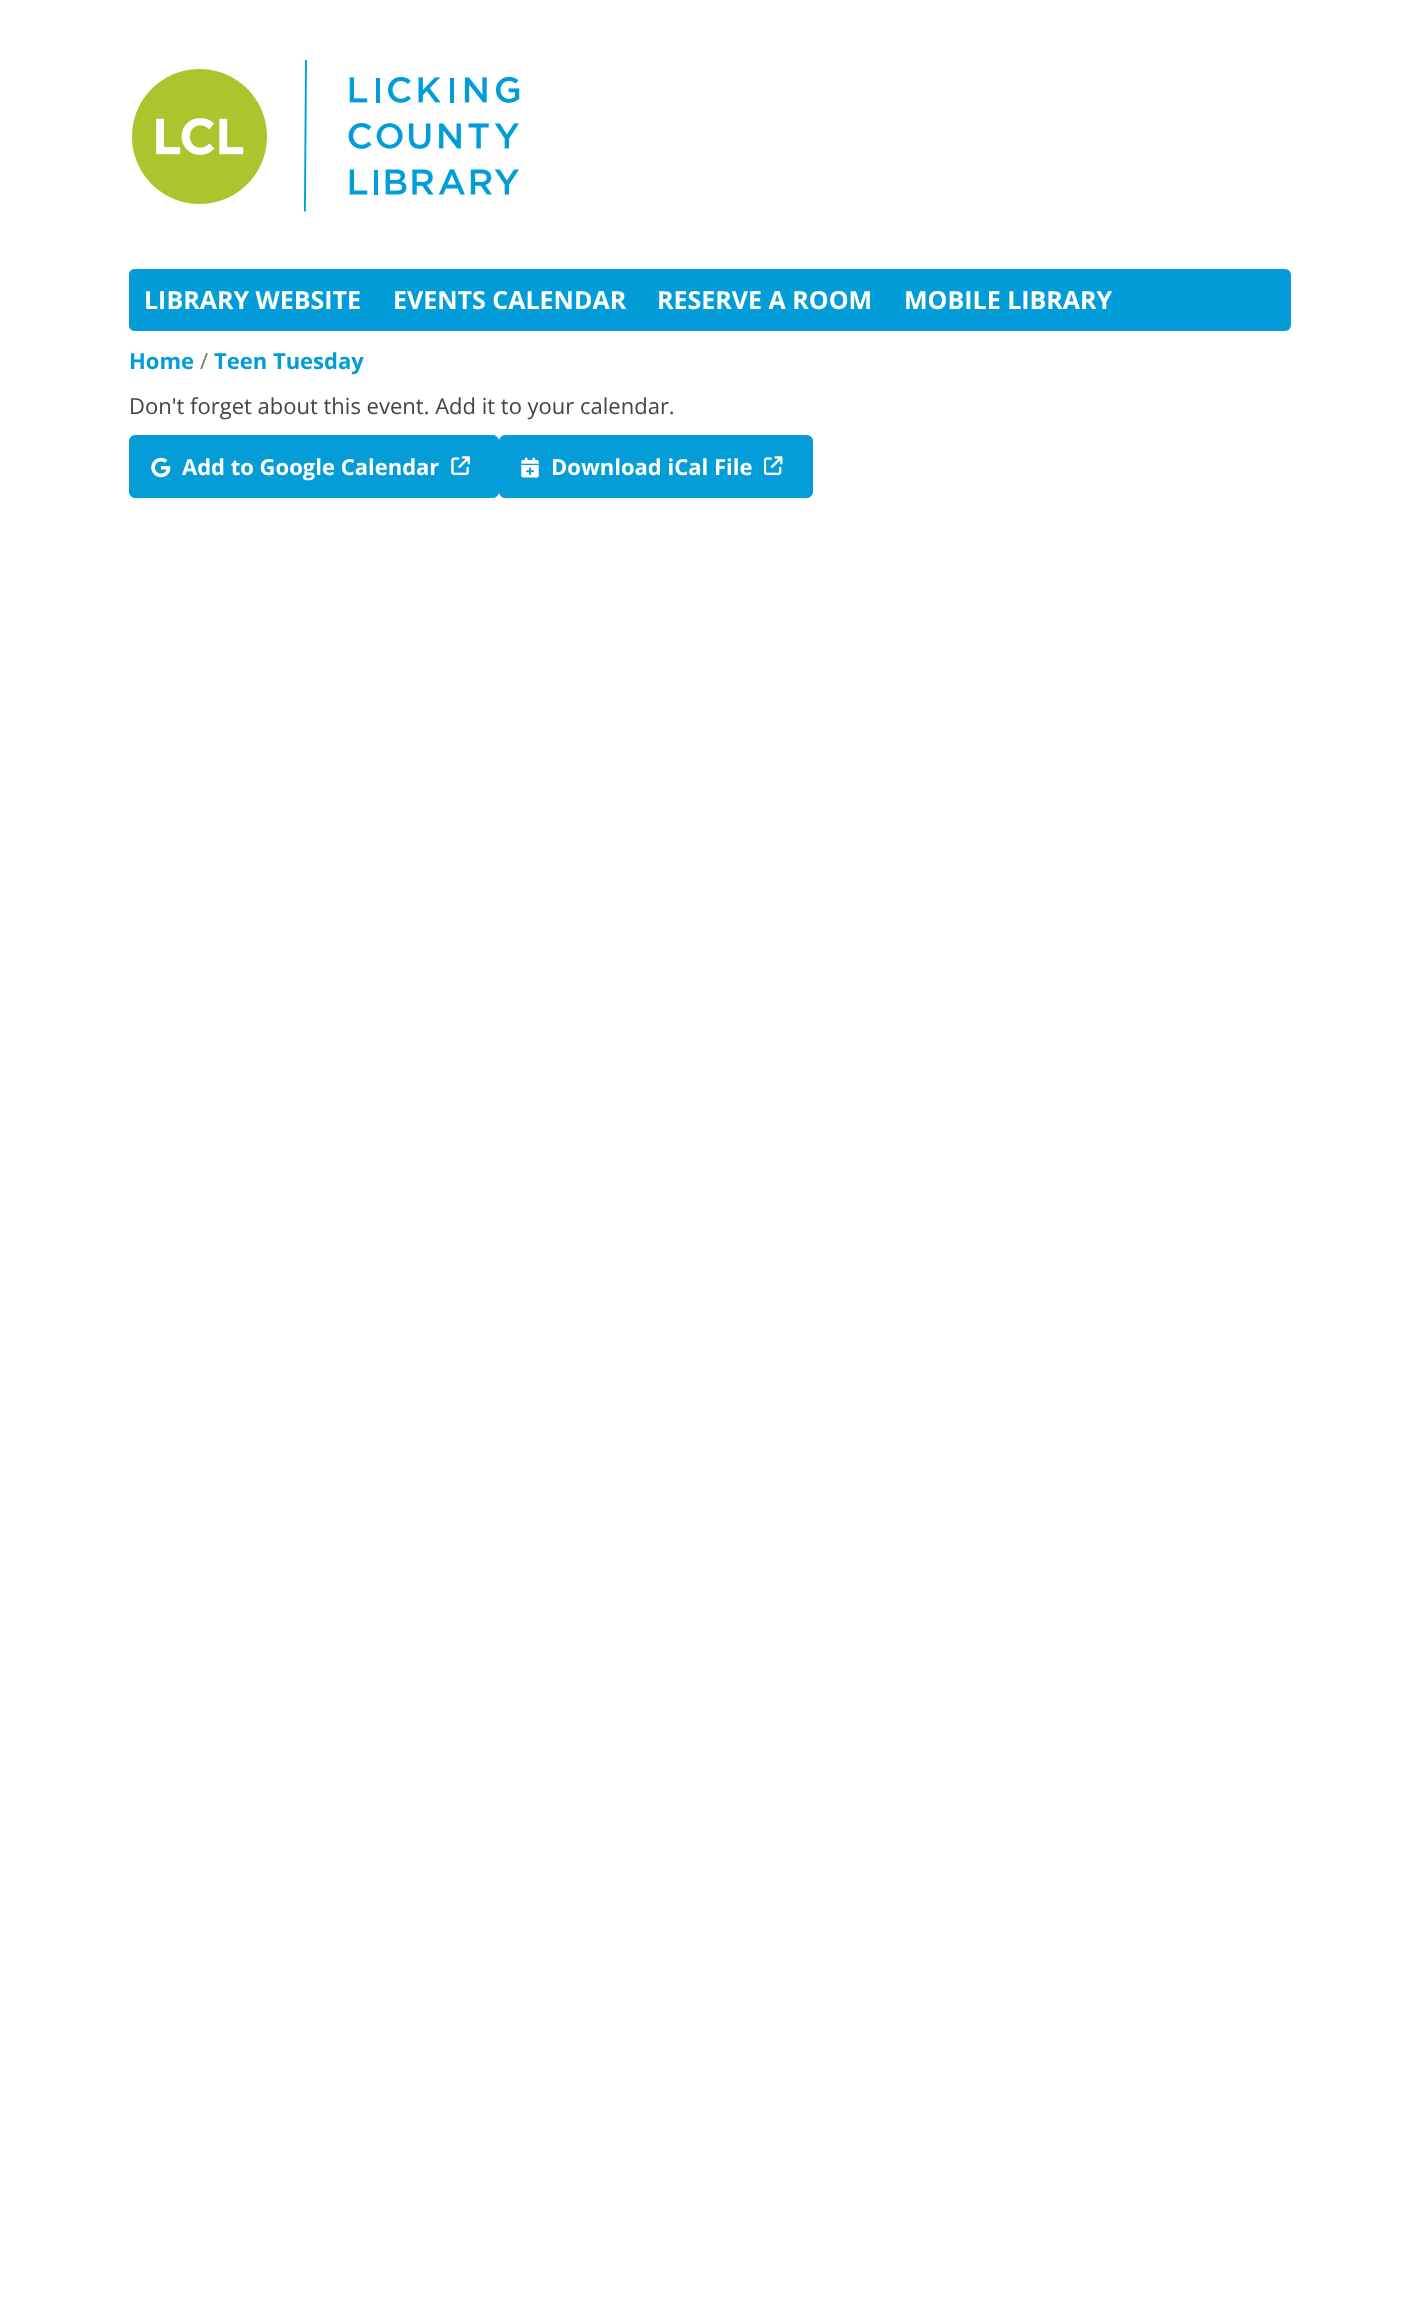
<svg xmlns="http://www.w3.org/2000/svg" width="1419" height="2304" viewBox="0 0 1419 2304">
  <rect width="100%" height="100%" fill="#fff"/>
  <image x="132" y="60" width="388" height="152" href="img/1.png"/>
  <rect x="129" y="269" width="1162" height="62" rx="6" fill="#029dd8"/>
  <path d="M135 269H378V331H135C131.5 331 129 328.5 129 325V275C129 271.5 131.5 269 135 269Z" fill="#029dd8"/>
  <rect x="129.5" y="435.5" width="369" height="62" rx="5.5" fill="#049dd8" stroke="#049dd8"/>
  <image x="151" y="457" width="20" height="21" href="img/2.png"/>
  <image x="451" y="456" width="19" height="19" href="img/3.png"/>
  <rect x="499.5" y="435.5" width="313" height="62" rx="5.5" fill="#049dd8" stroke="#049dd8"/>
  <image x="521" y="457" width="18" height="21" href="img/4.png"/>
  <image x="764" y="456" width="19" height="19" href="img/5.png"/>
  <g font-family="Open Sans" font-size="25" font-weight="bold" fill="#fff">
    <text x="144" y="309">LIBRARY WEBSITE</text>
    <text x="393" y="309">EVENTS CALENDAR</text>
    <text x="657" y="309">RESERVE A ROOM</text>
    <text x="904" y="309">MOBILE LIBRARY</text>
  </g>
  <text x="129" y="369" font-family="Open Sans" font-size="22" font-weight="bold" fill="#029dd8">Home</text>
  <text x="200" y="369" font-family="Open Sans" font-size="22" fill="#737373">/</text>
  <text x="214" y="369" font-family="Open Sans" font-size="22" font-weight="bold" fill="#029dd8">Teen Tuesday</text>
  <text x="129" y="414" font-family="Open Sans" font-size="22" fill="#444">Don't forget about this event. Add it to your calendar.</text>
  <g font-family="Open Sans" font-size="22" font-weight="bold" fill="#fff">
    <text x="182" y="475">Add to Google Calendar</text>
    <text x="551" y="475">Download iCal File</text>
  </g>
</svg>
